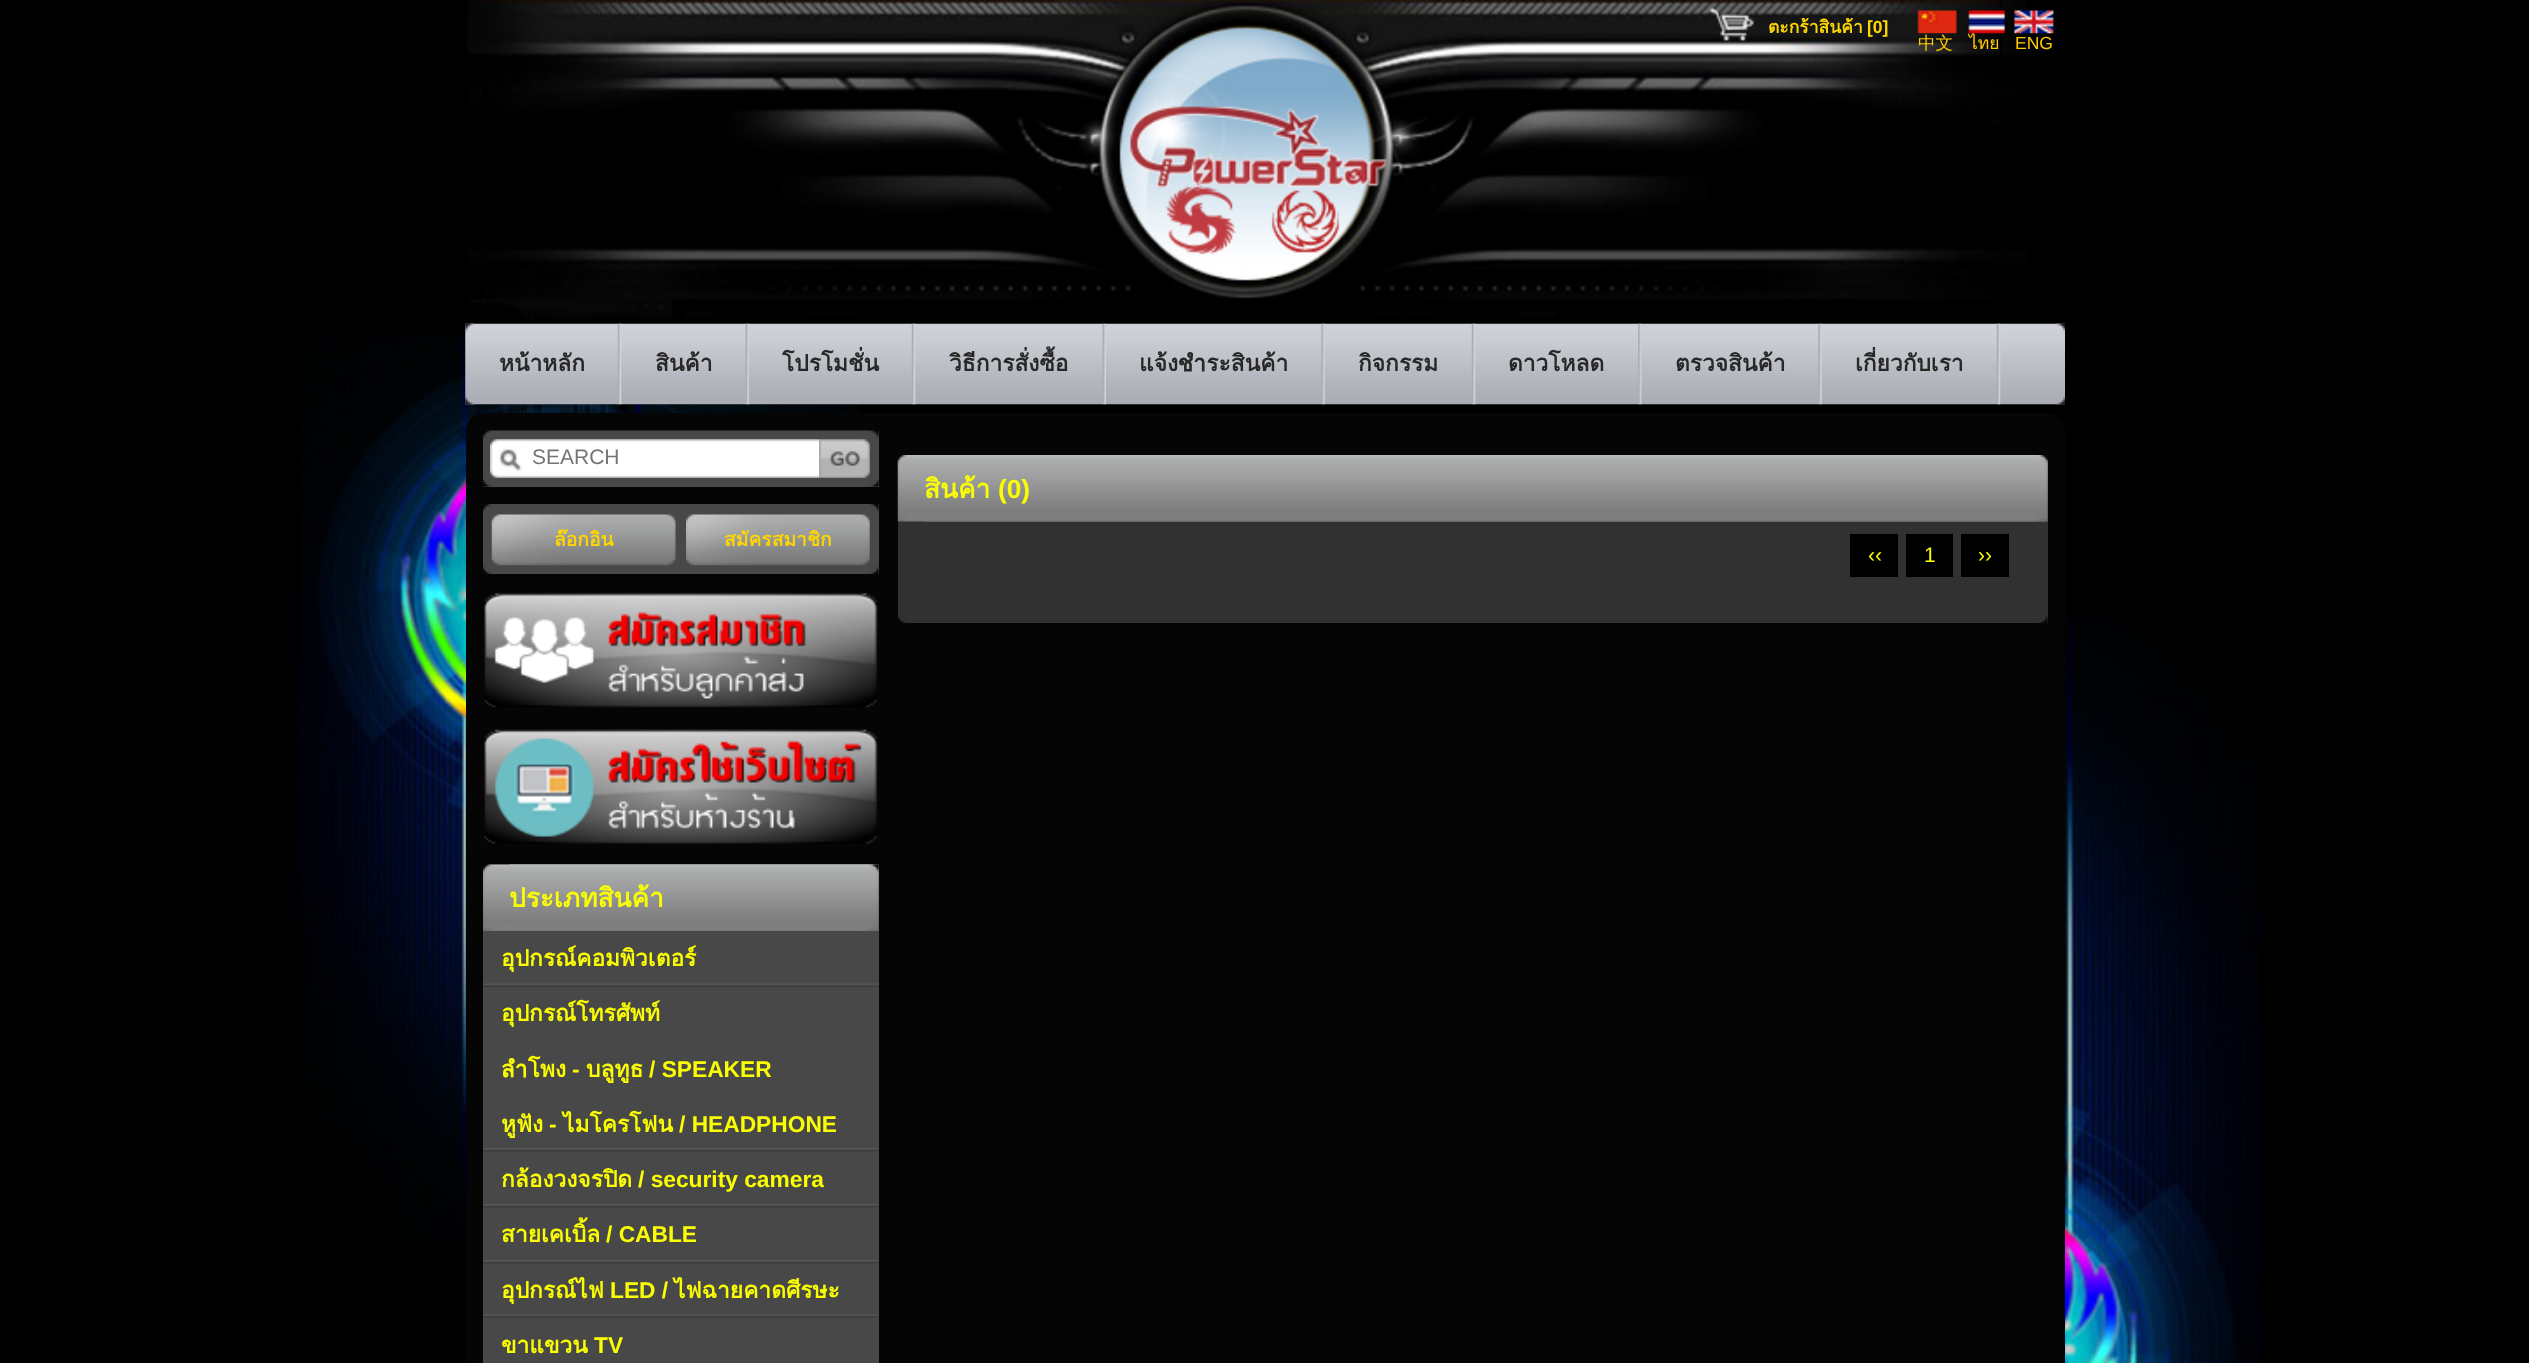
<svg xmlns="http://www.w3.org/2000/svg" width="2529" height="1363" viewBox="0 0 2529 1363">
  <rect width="100%" height="100%" fill="#000"/>
  <image x="296" y="335" width="1965" height="1028" href="img/1.png"/>
  <image x="467" y="0" width="1560" height="319" href="img/2.png"/>
  <image x="1709" y="8" width="45" height="33" href="img/3.png"/>
  <image x="1917" y="10" width="40" height="24" href="img/4.png"/>
  <image x="1968" y="10" width="38" height="24" href="img/5.png"/>
  <image x="2014" y="10" width="40" height="24" href="img/6.png"/>
  <image x="1130" y="106" width="257" height="148" href="img/7.png"/>
  <image x="465" y="323" width="1600" height="82" href="img/8.png"/>
  <image x="2056" y="323" width="9" height="82" href="img/9.png"/>
  <image x="465" y="323" width="10" height="82" href="img/10.png"/>
  <image x="617" y="323" width="5" height="82" href="img/11.png"/>
  <image x="745" y="323" width="4" height="82" href="img/12.png"/>
  <image x="911" y="323" width="5" height="82" href="img/13.png"/>
  <image x="1102" y="323" width="4" height="82" href="img/14.png"/>
  <image x="1321" y="323" width="4" height="82" href="img/15.png"/>
  <image x="1471" y="323" width="5" height="82" href="img/13.png"/>
  <image x="1638" y="323" width="4" height="82" href="img/16.png"/>
  <image x="1818" y="323" width="4" height="82" href="img/15.png"/>
  <image x="1996" y="323" width="5" height="82" href="img/17.png"/>
  <rect x="466" y="413" width="1599" height="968" rx="18" fill="#050505"/>
  <image x="468" y="413" width="14" height="9" href="img/18.png"/>
  <path d="M483 431h396v56H483z" fill="#484848"/>
  <image x="483" y="430" width="396" height="8" href="img/19.png"/>
  <image x="483" y="479" width="396" height="8" href="img/20.png"/>
  <image x="490" y="439" width="329" height="39" href="img/21.png"/>
  <image x="819" y="439" width="51" height="39" href="img/22.png"/>
  <path d="M483 504h396v70H483z" fill="#484848"/>
  <image x="483" y="504" width="396" height="8" href="img/23.png"/>
  <image x="483" y="566" width="396" height="8" href="img/24.png"/>
  <image x="491" y="514" width="185" height="52" href="img/25.png"/>
  <image x="686" y="514" width="184" height="52" href="img/26.png"/>
  <image x="484" y="592" width="394" height="116" href="img/27.png"/>
  <image x="484" y="729" width="394" height="115" href="img/28.png"/>
  <path d="M483 865h396v498H483z" fill="#484848"/>
  <image x="483" y="864" width="396" height="8" href="img/19.png"/>
  <image x="483" y="864" width="396" height="67" href="img/29.png"/>
  <image x="509" y="864" width="370" height="67" href="img/30.png"/>
  <image x="483" y="983" width="396" height="4" href="img/31.png"/>
  <image x="483" y="1148" width="396" height="4" href="img/32.png"/>
  <image x="483" y="1204" width="396" height="4" href="img/32.png"/>
  <image x="483" y="1260" width="396" height="4" href="img/32.png"/>
  <image x="483" y="1314" width="396" height="4" href="img/33.png"/>
  <path d="M898 455h1150v168H898z" fill="#313131"/>
  <image x="897" y="455" width="1151" height="9" href="img/34.png"/>
  <image x="897" y="614" width="1151" height="9" href="img/35.png"/>
  <image x="897" y="455" width="1151" height="67" href="img/36.png"/>
  <image x="924" y="455" width="1124" height="67" href="img/37.png"/>
  <path d="M1850 534h48v43H1850z" fill="#000"/>
  <path d="M1906 534h47v43H1906z" fill="#000"/>
  <path d="M1961 534h48v43H1961z" fill="#000"/>
  <text x="1768" y="33" font-family="Loma" font-size="17.5" font-weight="bold" fill="#ffd700">ตะกร้าสินค้า</text>
  <text x="1867" y="33" font-family="Liberation Sans" font-size="17.5" font-weight="bold" fill="#ffd700">[0]</text>
  <text x="1918" y="49" font-family="WenQuanYi Zen Hei" font-size="17.5" font-weight="500" fill="#fc0">中文</text>
  <text x="1969" y="49" font-family="Loma" font-size="17.5" fill="#fc0">ไทย</text>
  <text x="2015" y="49" font-family="Liberation Sans" font-size="17.5" fill="#fc0">ENG</text>
  <g font-family="Loma" font-size="22.75" font-weight="bold" fill="#282828">
    <text x="499" y="371">หน้าหลัก</text>
    <text x="655" y="371">สินค้า</text>
    <text x="782" y="371">โปรโมชั่น</text>
    <text x="949" y="371">วิธีการสั่งซื้อ</text>
    <text x="1139" y="371">แจ้งชำระสินค้า</text>
    <text x="1358" y="371">กิจกรรม</text>
    <text x="1508" y="371">ดาวโหลด</text>
    <text x="1675" y="371">ตรวจสินค้า</text>
    <text x="1855" y="371">เกี่ยวกับเรา</text>
  </g>
  <text x="532" y="464" font-family="Liberation Sans" font-size="21" fill="#757575">SEARCH</text>
  <g font-family="Loma" font-size="19.25" font-weight="bold" fill="#ffd700">
    <text x="554" y="546">ล๊อกอิน</text>
    <text x="724" y="546">สมัครสมาชิก</text>
  </g>
  <text x="509" y="907" font-family="Loma" font-size="26.25" font-weight="bold" fill="#fafe01">ประเภทสินค้า</text>
  <g font-family="Loma" font-size="22.75" font-weight="bold" fill="#fafe01">
    <text x="501" y="966">อุปกรณ์คอมพิวเตอร์</text>
    <text x="501" y="1021">อุปกรณ์โทรศัพท์</text>
    <text x="501" y="1077">ลำโพง</text>
  </g>
  <text x="572" y="1077" font-family="Liberation Sans" font-size="22.75" font-weight="bold" fill="#fafe01">-</text>
  <text x="586" y="1077" font-family="Loma" font-size="22.75" font-weight="bold" fill="#fafe01">บลูทูธ</text>
  <text x="649" y="1077" font-family="Liberation Sans" font-size="22.75" font-weight="bold" fill="#fafe01">/ SPEAKER</text>
  <text x="501" y="1132" font-family="Loma" font-size="22.75" font-weight="bold" fill="#fafe01">หูฟัง</text>
  <text x="549" y="1132" font-family="Liberation Sans" font-size="22.75" font-weight="bold" fill="#fafe01">-</text>
  <text x="563" y="1132" font-family="Loma" font-size="22.75" font-weight="bold" fill="#fafe01">ไมโครโฟน</text>
  <text x="679" y="1132" font-family="Liberation Sans" font-size="22.75" font-weight="bold" fill="#fafe01">/ HEADPHONE</text>
  <text x="501" y="1187" font-family="Loma" font-size="22.75" font-weight="bold" fill="#fafe01">กล้องวงจรปิด</text>
  <text x="638" y="1187" font-family="Liberation Sans" font-size="22.75" font-weight="bold" fill="#fafe01">/ security camera</text>
  <text x="501" y="1242" font-family="Loma" font-size="22.75" font-weight="bold" fill="#fafe01">สายเคเบิ้ล</text>
  <text x="606" y="1242" font-family="Liberation Sans" font-size="22.75" font-weight="bold" fill="#fafe01">/ CABLE</text>
  <text x="501" y="1298" font-family="Loma" font-size="22.75" font-weight="bold" fill="#fafe01">อุปกรณ์ไฟ</text>
  <text x="610" y="1298" font-family="Liberation Sans" font-size="22.75" font-weight="bold" fill="#fafe01">LED /</text>
  <g font-family="Loma" font-size="22.75" font-weight="bold" fill="#fafe01">
    <text x="674" y="1298">ไฟฉายคาดศีรษะ</text>
    <text x="501" y="1353">ขาแขวน</text>
  </g>
  <text x="594" y="1353" font-family="Liberation Sans" font-size="22.75" font-weight="bold" fill="#fafe01">TV</text>
  <text x="924" y="498" font-family="Loma" font-size="26.25" font-weight="bold" fill="#fafe01">สินค้า</text>
  <text x="998" y="498" font-family="Liberation Sans" font-size="26.25" font-weight="bold" fill="#fafe01">(0)</text>
  <g font-family="Liberation Sans" font-size="21" fill="#fafe01">
    <text x="1868" y="562">‹‹</text>
    <text x="1924" y="562">1</text>
    <text x="1978" y="562">››</text>
  </g>
</svg>
